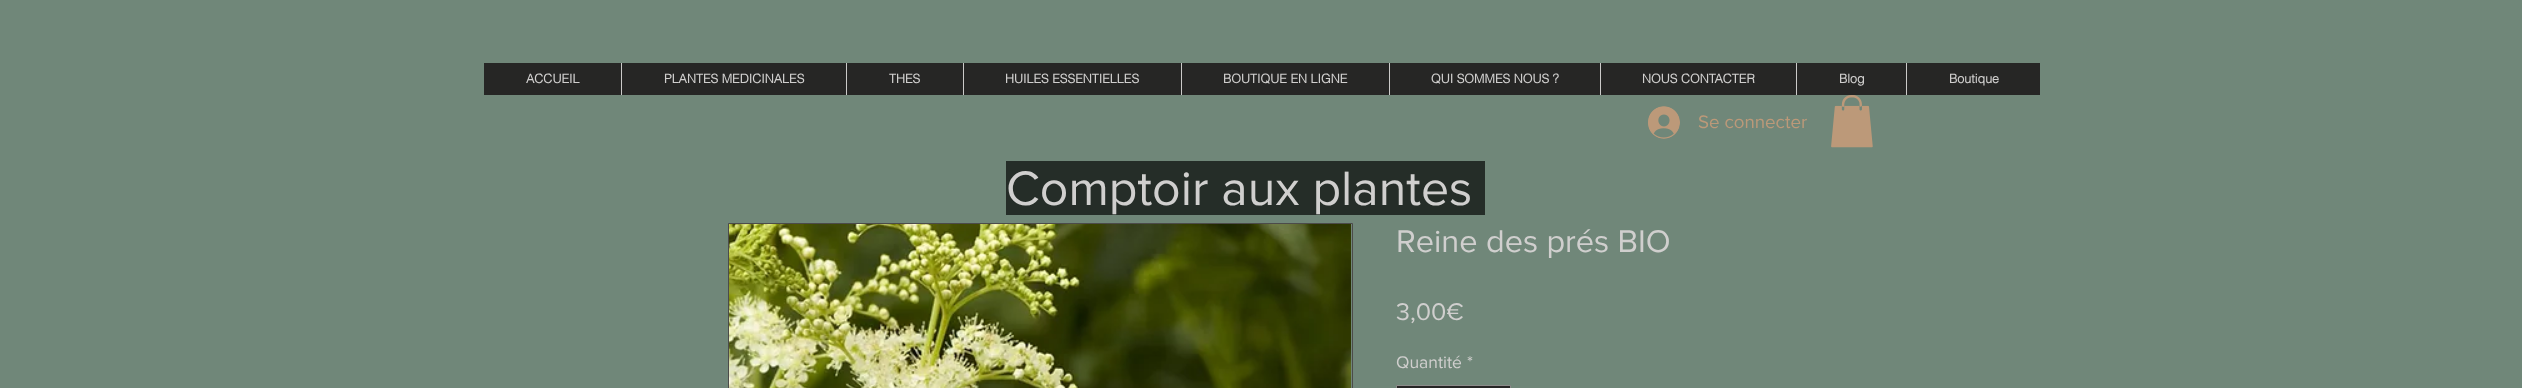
<svg xmlns="http://www.w3.org/2000/svg" width="2522" height="388" viewBox="0 0 2522 388">
  <rect width="100%" height="100%" fill="#708779"/>
  <path d="M484 63h1556v32H484z" fill="#262625"/>
  <path d="M621 63h1v32H621z" fill="#cbcac9"/>
  <path d="M846 63h1v32H846z" fill="#cbcac9"/>
  <path d="M963 63h1v32H963z" fill="#cbcac9"/>
  <path d="M1181 63h1v32H1181z" fill="#cbcac9"/>
  <path d="M1389 63h1v32H1389z" fill="#cbcac9"/>
  <path d="M1600 63h1v32H1600z" fill="#cbcac9"/>
  <path d="M1796 63h1v32H1796z" fill="#cbcac9"/>
  <path d="M1906 63h1v32H1906z" fill="#cbcac9"/>
  <image x="1648" y="106" width="32" height="33" href="img/1.png"/>
  <image x="1831" y="95" width="42" height="53" href="img/2.png"/>
  <path d="M1006 161h479v54H1006z" fill="#252d28"/>
  <path d="M728.5 223.5h624v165H728.5z" fill="none" stroke="#4c4b4a"/>
  <image x="729" y="224" width="622" height="164" href="img/3.png"/>
  <path d="M1396.5 385.5h114v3H1396.5z" fill="#262625" stroke="#8c8b8a"/>
  <g font-family="helvetica" font-size="12.5" font-weight="bold" fill="#d0cfce">
    <text x="526" y="83">ACCUEIL</text>
    <text x="664" y="83">PLANTES MEDICINALES</text>
    <text x="889" y="83">THES</text>
    <text x="1005" y="83">HUILES ESSENTIELLES</text>
    <text x="1223" y="83">BOUTIQUE EN LIGNE</text>
    <text x="1431" y="83">QUI SOMMES NOUS ?</text>
    <text x="1642" y="83">NOUS CONTACTER</text>
    <text x="1839" y="83">Blog</text>
    <text x="1949" y="83">Boutique</text>
  </g>
  <text x="1698" y="128" font-family="'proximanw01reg'" font-size="18.75" fill="#bc9979">Se connecter</text>
  <text x="1006" y="205" font-family="'proximanw01reg'" font-size="50" fill="#d0cfce">Comptoir aux plantes</text>
  <text x="1396" y="252" font-family="'proximanw01reg'" font-size="32.5" fill="#d0cfce">Reine des prés BIO</text>
  <text x="1396" y="320" font-family="'proximanw01reg'" font-size="25" fill="#d0cfce">3,00€</text>
  <g font-family="'proximanw01reg'" font-size="17.5" fill="#d0cfce">
    <text x="1396" y="368">Quantité</text>
    <text x="1467" y="368">*</text>
  </g>
</svg>
